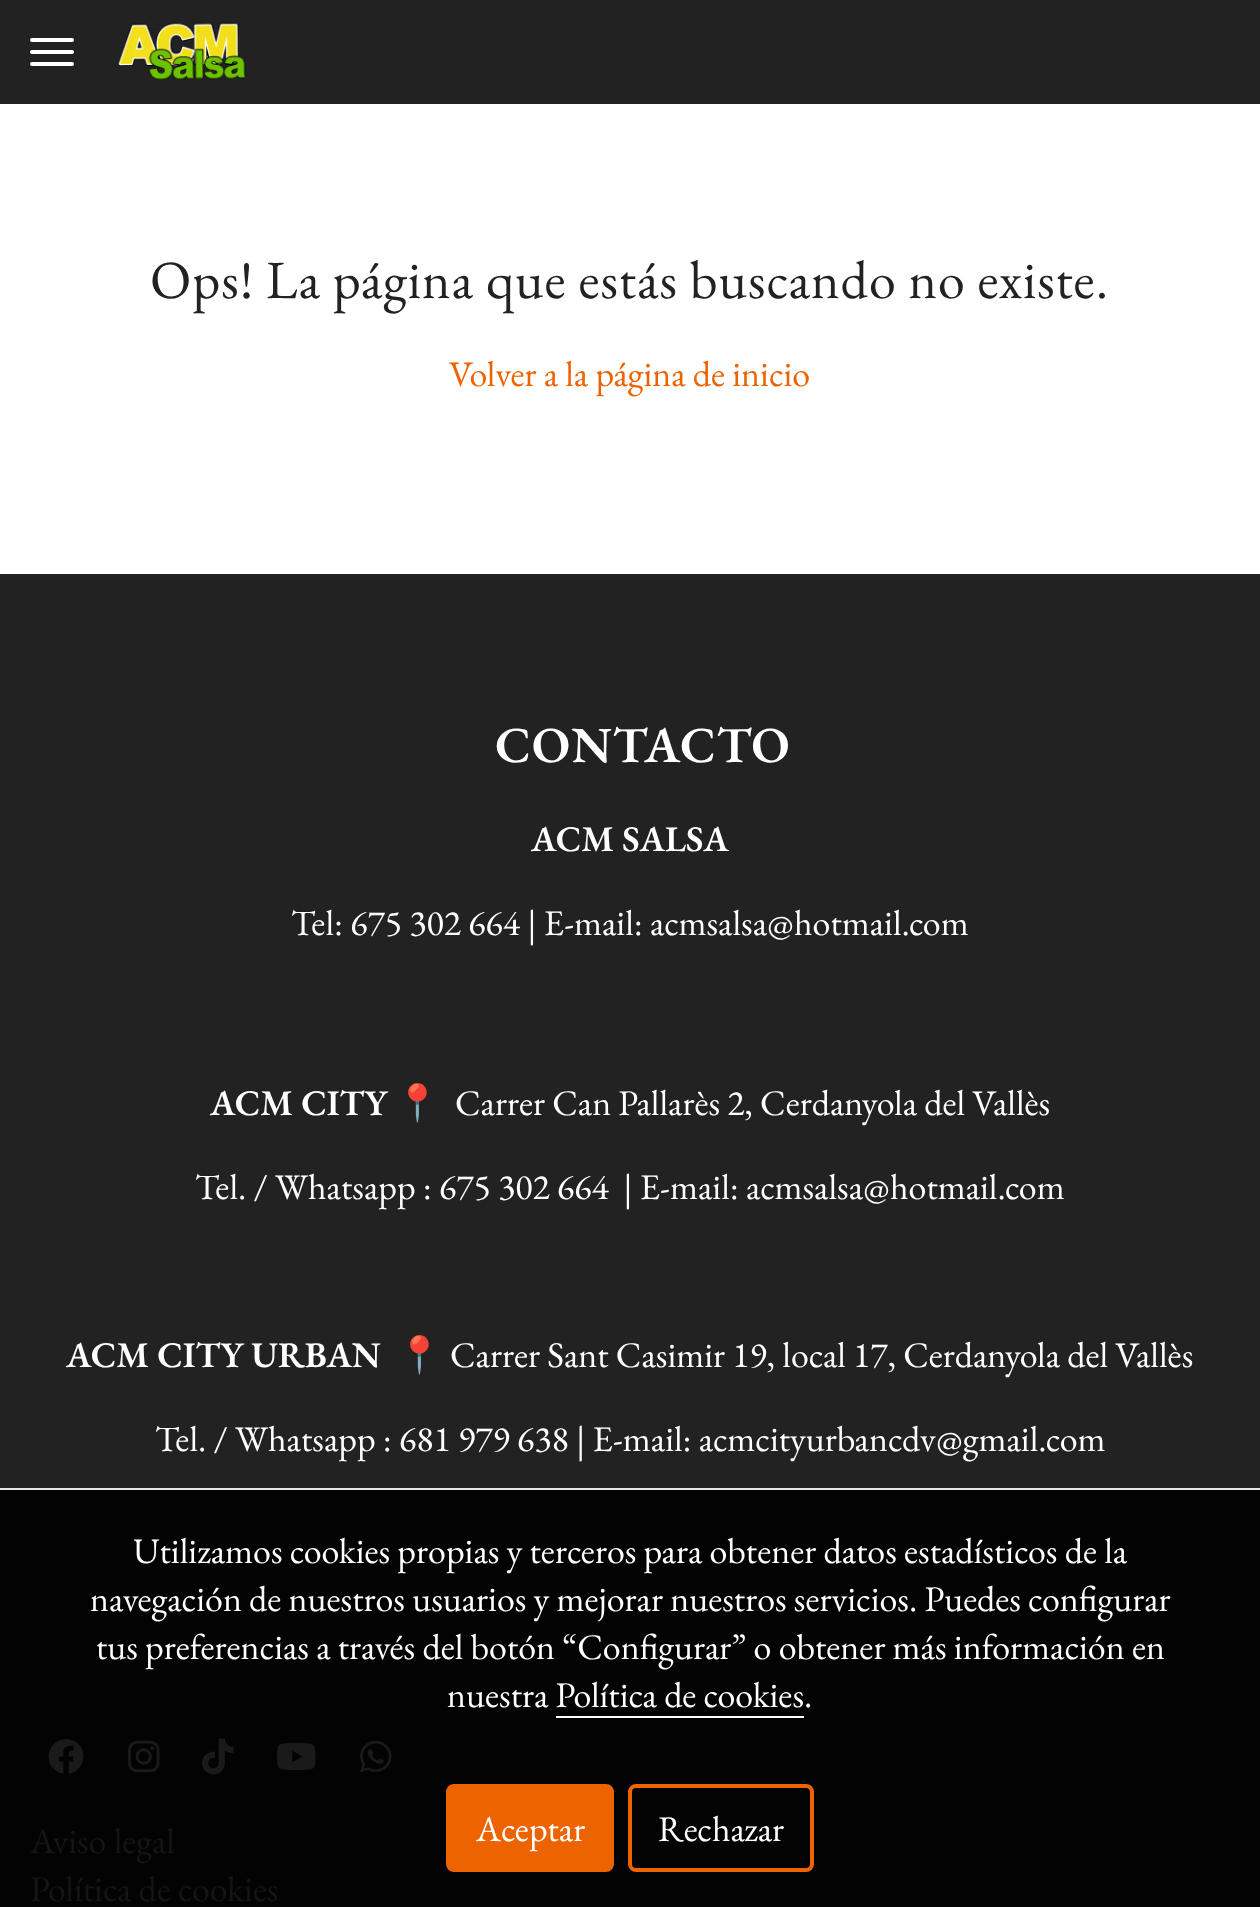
<svg xmlns="http://www.w3.org/2000/svg" width="1260" height="1907" viewBox="0 0 1260 1907">
  <rect width="100%" height="100%" fill="#fff"/>
  <path d="M0 0h1260v104H0z" fill="#222"/>
  <rect x="30" y="38" width="44" height="4" rx="2" fill="#fff"/>
  <rect x="30" y="50" width="44" height="4" rx="2" fill="#fff"/>
  <rect x="30" y="62" width="44" height="4" rx="2" fill="#fff"/>
  <image x="117" y="22" width="129" height="58" href="img/1.png"/>
  <path d="M0 574h1260v914H0z" fill="#222"/>
  <path d="M0 1490h1260v417H0z" fill="#030303"/>
  <image x="48" y="1739" width="36" height="35" href="img/2.png"/>
  <image x="128" y="1740" width="32" height="33" href="img/3.png"/>
  <image x="202" y="1738" width="32" height="37" href="img/4.png"/>
  <image x="277" y="1743" width="39" height="27" href="img/5.png"/>
  <image x="360" y="1740" width="32" height="33" href="img/6.png"/>
  <path d="M0 1488h1260v2H0z" fill="#e7e7e7"/>
  <path d="M556 1716h248v2H556z" fill="#fff"/>
  <rect x="448" y="1786" width="164" height="84" rx="6" fill="#ed6300" stroke="#ed6300" stroke-width="4"/>
  <rect x="630" y="1786" width="182" height="84" rx="6" fill="none" stroke="#ed6300" stroke-width="4"/>
  <text x="150" y="298" font-family="EB Garamond" font-size="54" letter-spacing="1" fill="#222">Ops! La página que estás buscando no existe.</text>
  <text x="449" y="386" font-family="EB Garamond" font-size="36" fill="#ed6300">Volver a la página de inicio</text>
  <text x="495" y="762" font-family="EB Garamond" font-size="50.5" font-weight="600" letter-spacing="1" fill="#fff">CONTACTO</text>
  <text x="531" y="851" font-family="EB Garamond" font-size="36" font-weight="600" fill="#fff">ACM SALSA</text>
  <text x="291" y="935" font-family="EB Garamond" font-size="36" fill="#fff">Tel: 675 302 664 | E-mail: acmsalsa@hotmail.com</text>
  <text x="210" y="1115" font-family="EB Garamond" font-size="36" font-weight="600" fill="#fff">ACM CITY</text>
  <text x="395" y="1115" font-family="Noto Color Emoji" font-size="36" fill="#fff">📍</text>
  <g font-family="EB Garamond" font-size="36" fill="#fff">
    <text x="455" y="1115">Carrer Can Pallarès 2, Cerdanyola del Vallès</text>
    <text x="195" y="1199" xml:space="preserve">Tel. / Whatsapp : 675 302 664  | E-mail: acmsalsa@hotmail.com</text>
  </g>
  <text x="66" y="1367" font-family="EB Garamond" font-size="36" font-weight="600" fill="#fff">ACM CITY URBAN</text>
  <text x="397" y="1367" font-family="Noto Color Emoji" font-size="36" fill="#fff">📍</text>
  <g font-family="EB Garamond" font-size="36" fill="#fff">
    <text x="450" y="1367">Carrer Sant Casimir 19, local 17, Cerdanyola del Vallès</text>
    <text x="155" y="1451">Tel. / Whatsapp : 681 979 638 | E-mail: acmcityurbancdv@gmail.com</text>
  </g>
  <g font-family="EB Garamond" font-size="36" fill="#151515">
    <text x="30" y="1853">Aviso legal</text>
    <text x="30" y="1901">Política de cookies</text>
  </g>
  <g font-family="EB Garamond" font-size="36" fill="#fff">
    <text x="133" y="1563">Utilizamos cookies propias y terceros para obtener datos estadísticos de la</text>
    <text x="90" y="1611">navegación de nuestros usuarios y mejorar nuestros servicios. Puedes configurar</text>
    <text x="96" y="1659">tus preferencias a través del botón “Configurar” o obtener más información en</text>
    <text x="447" y="1707">nuestra Política de cookies.</text>
    <text x="476" y="1841">Aceptar</text>
    <text x="658" y="1841">Rechazar</text>
  </g>
</svg>
